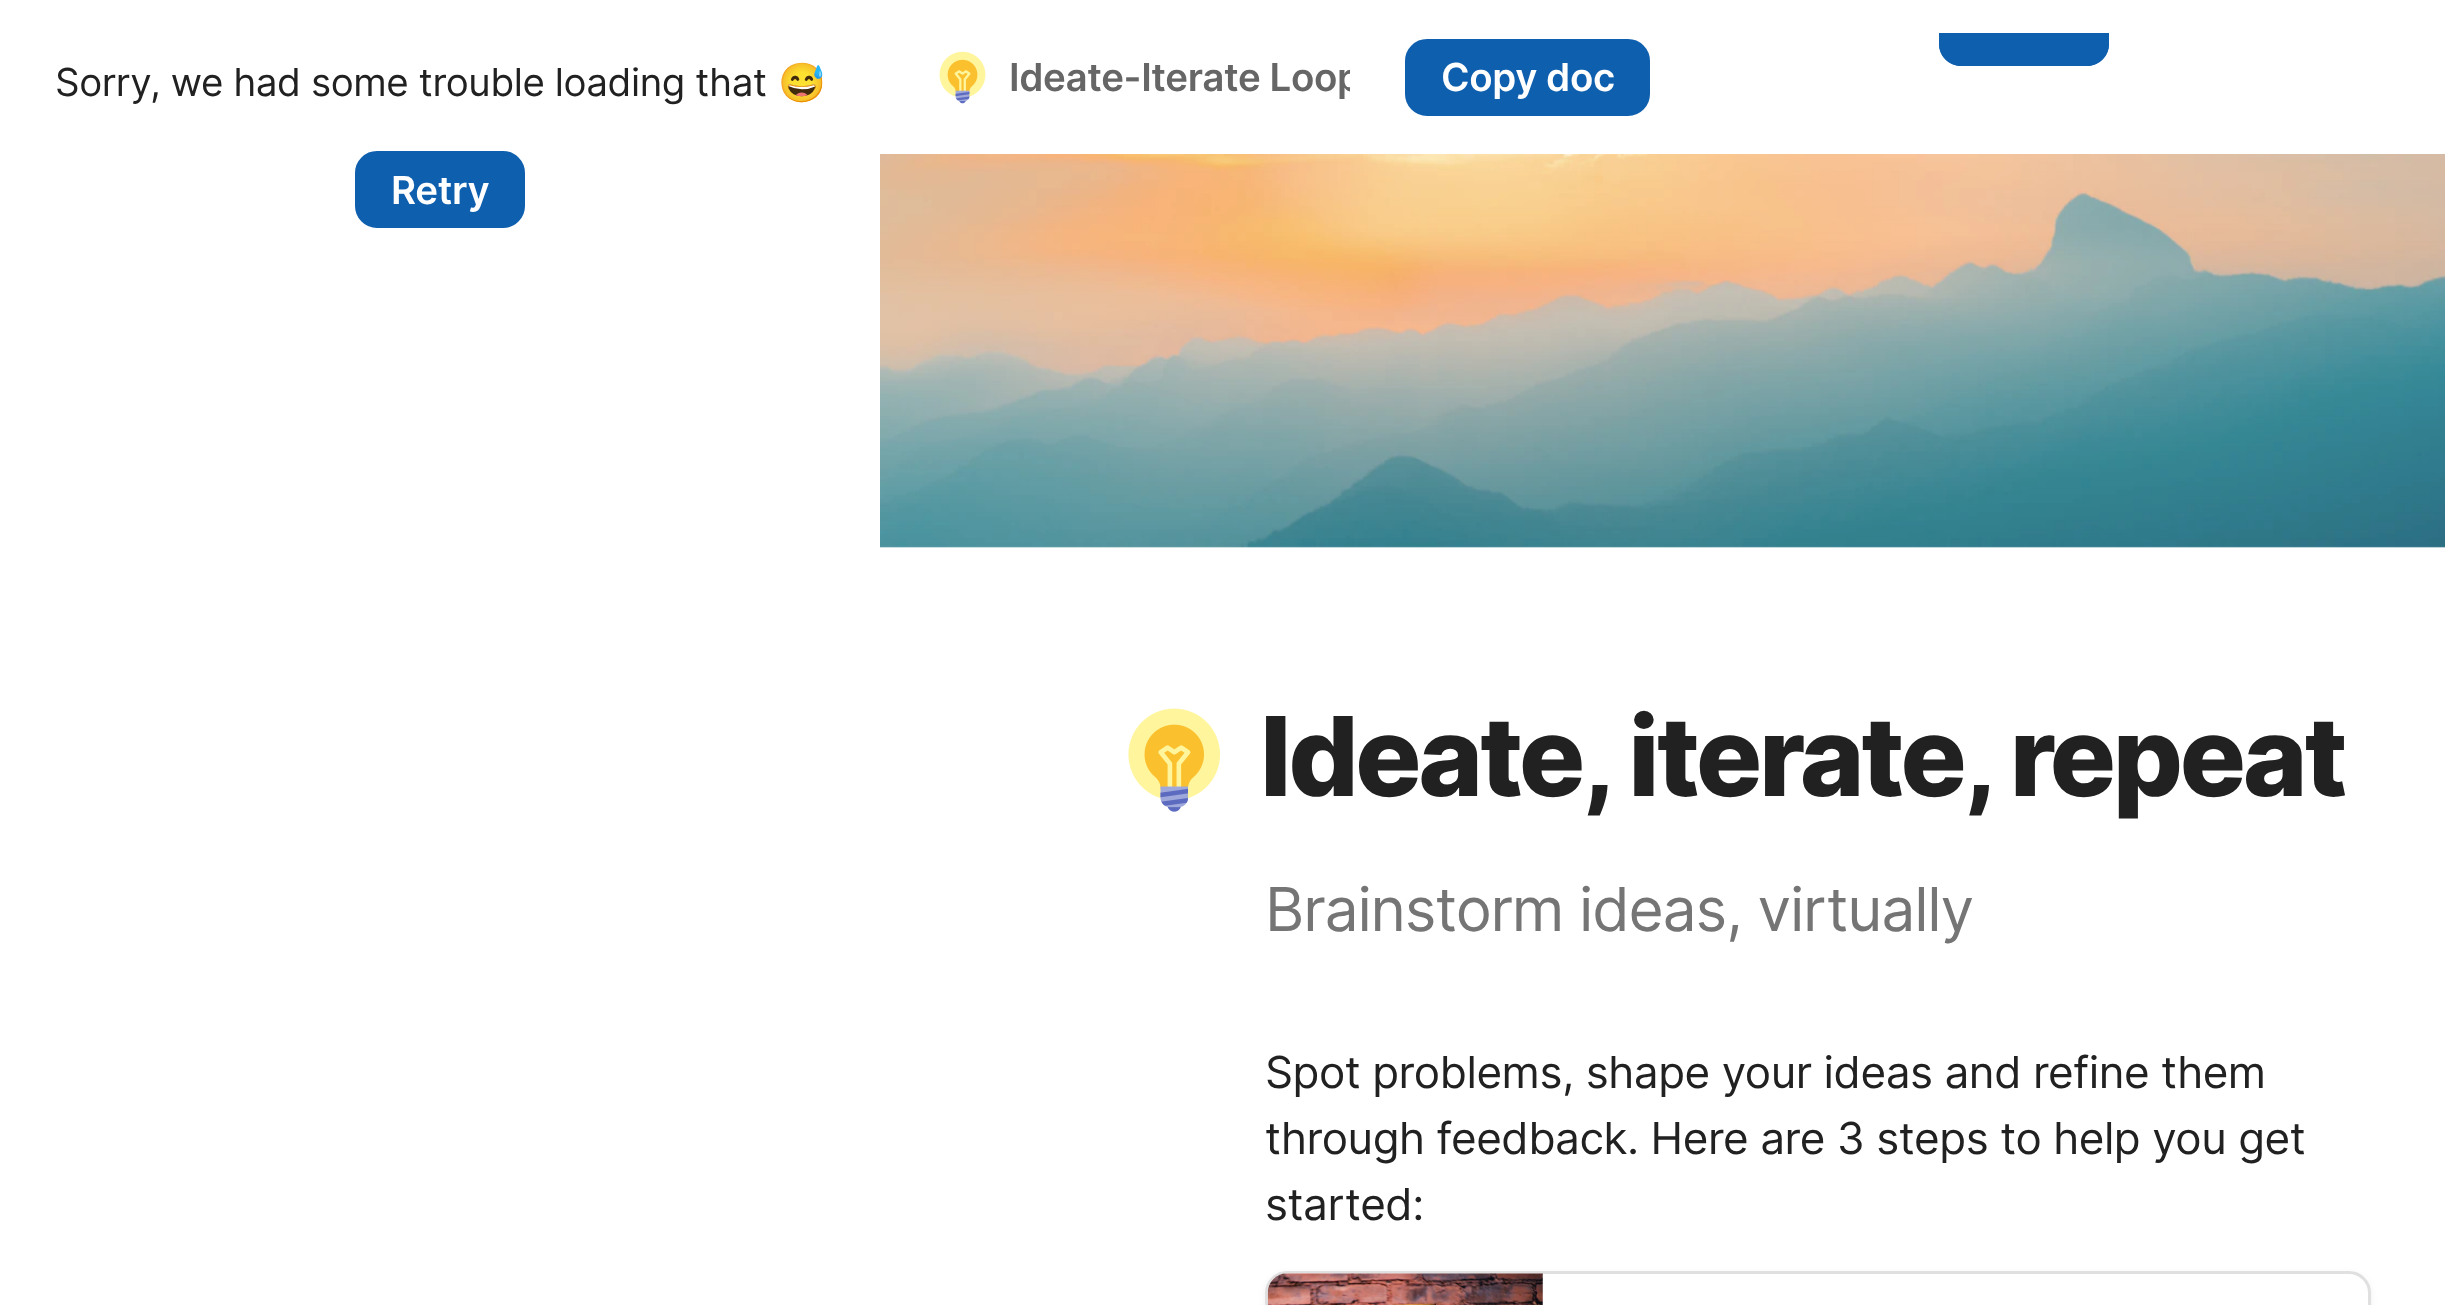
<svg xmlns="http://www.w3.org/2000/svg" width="2445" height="1305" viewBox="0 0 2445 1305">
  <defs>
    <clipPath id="clip1"><path d="M1350 33h1048v88H1350z"/></clipPath>
    <clipPath id="clip2"><path d="M880 33h470v88H880z"/></clipPath>
  </defs>
  <rect width="100%" height="100%" fill="#fff"/>
  <rect x="356.5" y="152.5" width="167" height="74" rx="20.5" fill="#0f5faf" stroke="#0f5faf" stroke-width="3"/>
  <image x="939" y="51" width="47" height="53" href="img/1.png"/>
  <path d="M1939 33H2109V44C2109 56 2099 66 2087 66H1961C1949 66 1939 56 1939 44Z" fill="#0f5faf"/>
  <g clip-path="url(#clip1)">
    <rect x="1940.5" y="-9.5" width="167" height="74" rx="20.5" fill="none" stroke="#0f5faf" stroke-width="3"/>
  </g>
  <rect x="1406.5" y="40.5" width="242" height="74" rx="20.5" fill="#0f5faf" stroke="#0f5faf" stroke-width="3"/>
  <image x="880" y="154" width="1565" height="394" href="img/2.png"/>
  <image x="1128" y="708" width="93" height="104" href="img/3.png"/>
  <rect x="1265" y="1273" width="1106" height="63" rx="22" fill="#0000000f" filter="blur(3px)"/>
  <path d="M1287 1271H2349C2361 1271 2371 1281 2371 1293V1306H1265V1293C1265 1281 1275 1271 1287 1271Z" fill="#fff"/>
  <rect x="1266.5" y="1272.5" width="1103" height="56" rx="20.5" fill="none" stroke="#e0e0e0" stroke-width="3"/>
  <path d="M1287 1273H1543V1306H1268V1292C1268 1281.5 1276.5 1273 1287 1273Z" fill="#fafafa"/>
  <image x="1267" y="1273" width="276" height="32" href="img/4.png"/>
  <text x="55" y="96" font-family="Inter" font-size="38.5" letter-spacing="-0.4" fill="#212121">Sorry, we had some trouble loading that</text>
  <text x="778" y="96" font-family="Noto Color Emoji" font-size="38.5" letter-spacing="-0.4" fill="#212121">😅</text>
  <text x="391" y="204" font-family="Inter" font-size="38.5" font-weight="600" letter-spacing="-0.4" fill="#fff">Retry</text>
  <g clip-path="url(#clip2)">
    <text x="1009" y="91" font-family="Inter" font-size="38.5" font-weight="600" letter-spacing="-0.4" fill="#666">Ideate-Iterate Loop</text>
  </g>
  <text x="1441" y="91" font-family="Inter" font-size="38.5" font-weight="600" letter-spacing="-0.4" fill="#fff">Copy doc</text>
  <text x="1260" y="796" font-family="Inter" font-size="110" font-weight="800" letter-spacing="-3.3" fill="#212121">Ideate, iterate, repeat</text>
  <text x="1265" y="931" font-family="Inter" font-size="60.5" letter-spacing="-1.2" fill="#757575">Brainstorm ideas, virtually</text>
  <g font-family="Inter" font-size="44" letter-spacing="-0.45" fill="#212121">
    <text x="1265" y="1088">Spot problems, shape your ideas and refine them</text>
    <text x="1265" y="1154">through feedback. Here are 3 steps to help you get</text>
    <text x="1265" y="1220">started:</text>
  </g>
</svg>
